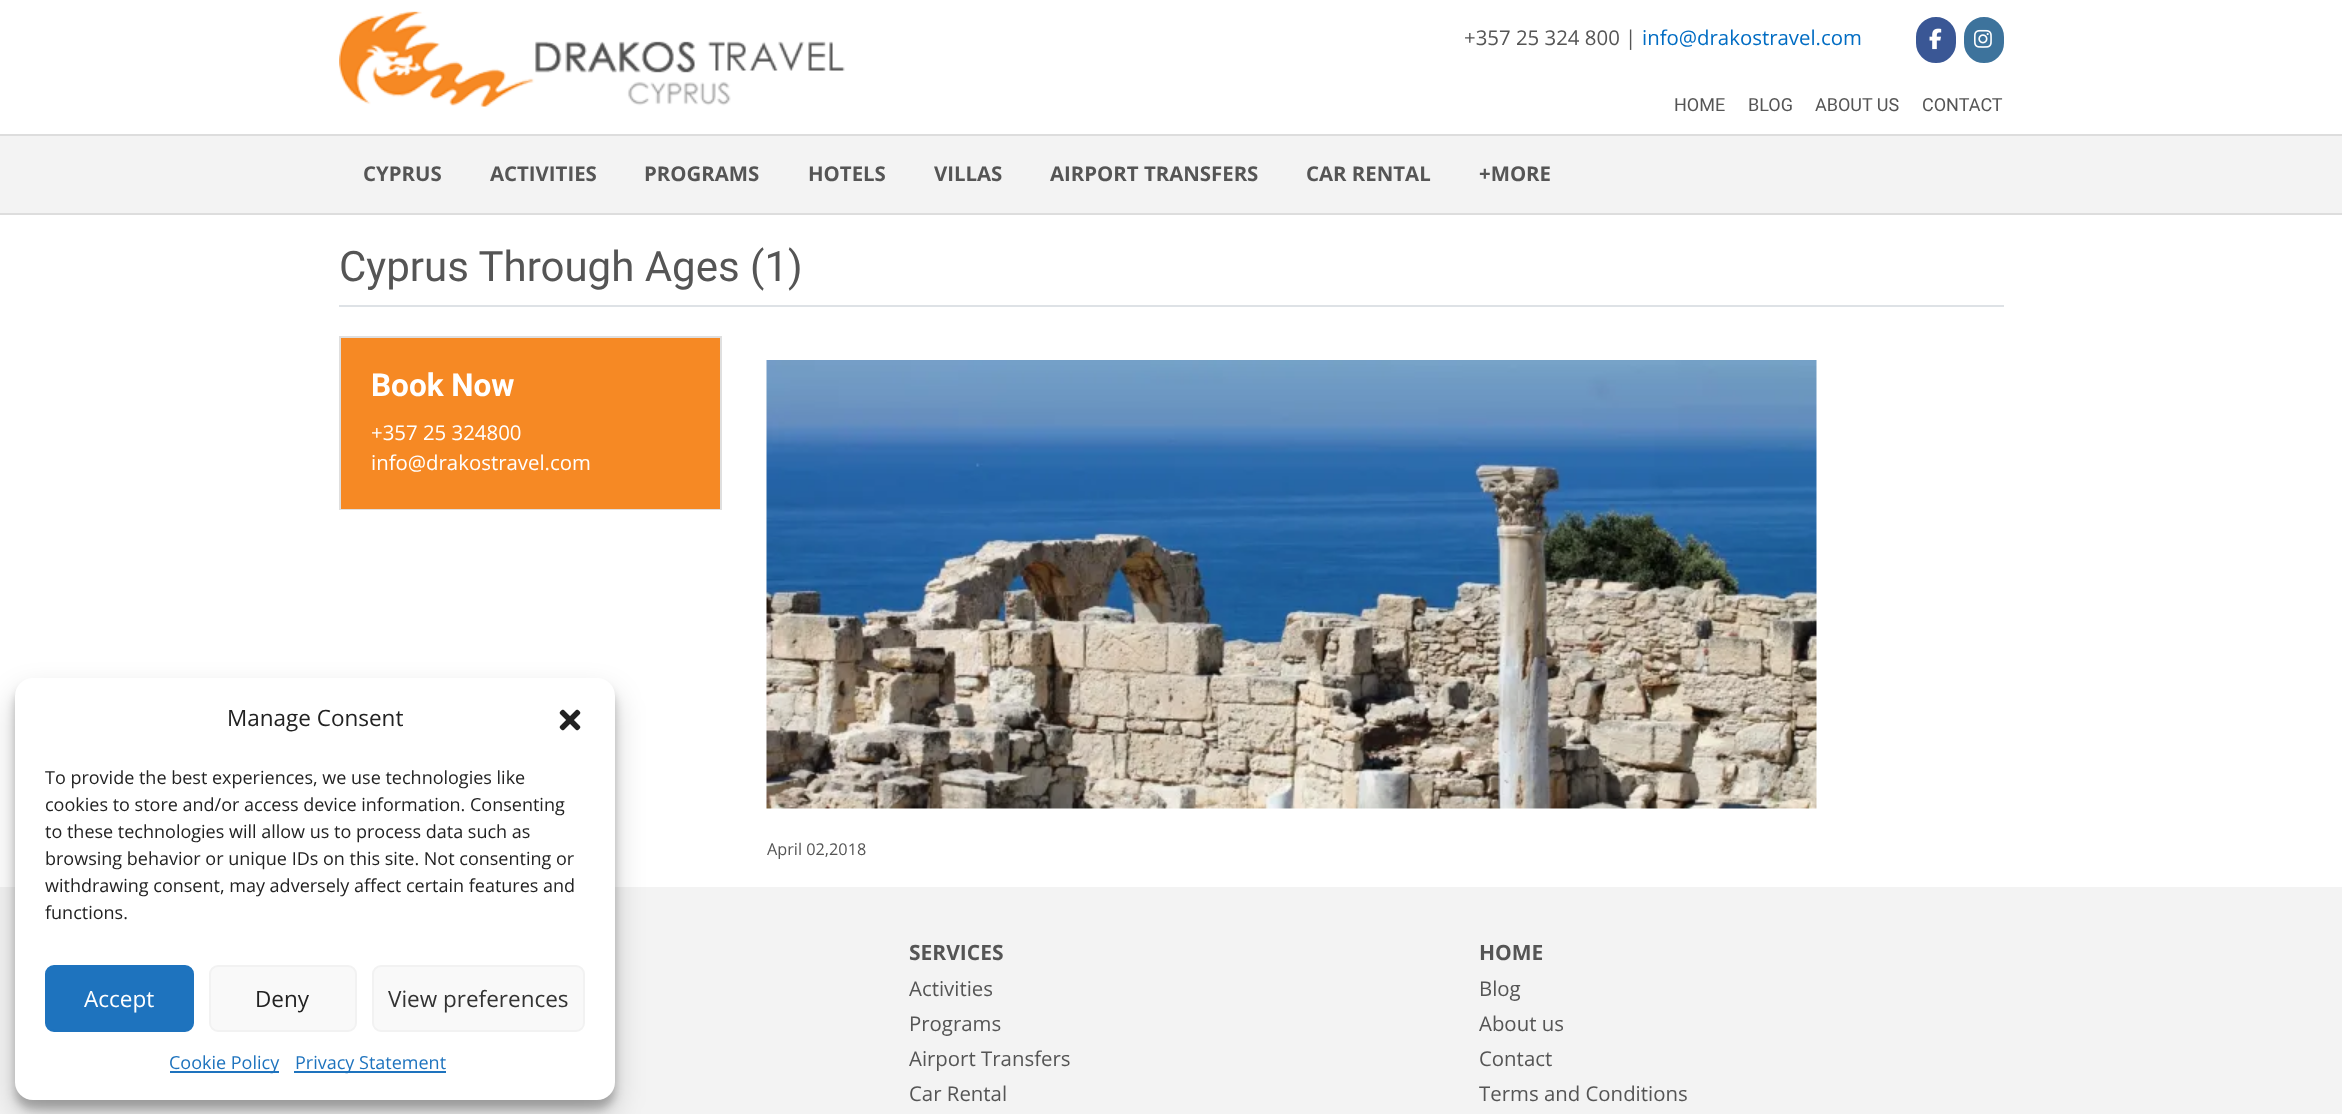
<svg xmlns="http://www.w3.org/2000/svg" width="2342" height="1114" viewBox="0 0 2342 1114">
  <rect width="100%" height="100%" fill="#fff"/>
  <image x="339" y="11" width="506" height="96" href="img/1.png"/>
  <rect x="1917" y="18" width="38" height="44" rx="19" fill="#3a5795" stroke="#3a5795" stroke-width="2"/>
  <image x="1929" y="28" width="13" height="22" href="img/2.png"/>
  <rect x="1965" y="18" width="38" height="44" rx="19" fill="#3d739c" stroke="#3d739c" stroke-width="2"/>
  <image x="1974" y="29" width="18" height="19" href="img/3.png"/>
  <path d="M0 136h2342v77H0z" fill="#f3f3f3"/>
  <path d="M0 134h2342v2H0z" fill="#ddd"/>
  <path d="M0 213h2342v2H0z" fill="#ddd"/>
  <path d="M0 887h2342v227H0z" fill="#f3f3f3"/>
  <rect x="15" y="687" width="600" height="422" rx="18" fill="#0000003b" filter="blur(4.5px)"/>
  <rect x="15" y="693" width="600" height="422" rx="18" fill="#00000030" filter="blur(15px)"/>
  <rect x="15" y="678" width="600" height="422" rx="18" fill="#fff"/>
  <image x="559" y="709" width="22" height="22" href="img/4.png"/>
  <rect x="46" y="966" width="147" height="65" rx="8" fill="#1e73be" stroke="#1e73be" stroke-width="2"/>
  <rect x="210" y="966" width="146" height="65" rx="8" fill="#f9f9f9" stroke="#f2f2f2" stroke-width="2"/>
  <rect x="373" y="966" width="211" height="65" rx="8" fill="#f9f9f9" stroke="#f2f2f2" stroke-width="2"/>
  <path d="M170 1071h109v2H170z" fill="#1e73be"/>
  <path d="M294 1071h152v2H294z" fill="#1e73be"/>
  <path d="M339 305h1665v2H339z" fill="#dee2e6"/>
  <path d="M340 337h381v172H340z" fill="none" stroke="#dfdfdf" stroke-width="2"/>
  <path d="M341 338h379v171H341z" fill="#f68924"/>
  <image x="766" y="360" width="1051" height="449" href="img/5.png"/>
  <text x="1464" y="45" font-family="Open Sans" font-size="20.4" fill="#555">+357 25 324 800 |</text>
  <text x="1642" y="45" font-family="Open Sans" font-size="20.4" fill="#006cc3">info@drakostravel.com</text>
  <g font-family="Roboto" font-size="18" fill="#555">
    <text x="1674" y="111">HOME</text>
    <text x="1748" y="111">BLOG</text>
    <text x="1815" y="111">ABOUT US</text>
    <text x="1922" y="111">CONTACT</text>
  </g>
  <g font-family="Open Sans" font-size="20.4" font-weight="bold" fill="#555">
    <text x="363" y="181">CYPRUS</text>
    <text x="490" y="181">ACTIVITIES</text>
    <text x="644" y="181">PROGRAMS</text>
    <text x="808" y="181">HOTELS</text>
    <text x="934" y="181">VILLAS</text>
    <text x="1050" y="181">AIRPORT TRANSFERS</text>
    <text x="1306" y="181">CAR RENTAL</text>
    <text x="1479" y="181">+MORE</text>
  </g>
  <text x="227" y="726" font-family="Open Sans" font-size="22.5" fill="#222">Manage Consent</text>
  <g font-family="Open Sans" font-size="18" fill="#222">
    <text x="45" y="784">To provide the best experiences, we use technologies like</text>
    <text x="45" y="811">cookies to store and/or access device information. Consenting</text>
    <text x="45" y="838">to these technologies will allow us to process data such as</text>
    <text x="45" y="865">browsing behavior or unique IDs on this site. Not consenting or</text>
    <text x="45" y="892">withdrawing consent, may adversely affect certain features and</text>
    <text x="45" y="919">functions.</text>
  </g>
  <text x="84" y="1007" font-family="Open Sans" font-size="22.5" fill="#fff">Accept</text>
  <text x="255" y="1007" font-family="Open Sans" font-size="22.5" fill="#222">Deny</text>
  <text x="388" y="1007" font-family="Open Sans" font-size="22.5" fill="#333">View preferences</text>
  <g font-family="Open Sans" font-size="18" fill="#1e73be">
    <text x="169" y="1069">Cookie Policy</text>
    <text x="295" y="1069">Privacy Statement</text>
  </g>
  <text x="339" y="281" font-family="Roboto" font-size="42" fill="#555">Cyprus Through Ages (1)</text>
  <text x="371" y="396" font-family="Roboto" font-size="31.5" font-weight="bold" fill="#fff">Book Now</text>
  <g font-family="Open Sans" font-size="20.4" fill="#fff">
    <text x="371" y="440">+357 25 324800</text>
    <text x="371" y="470">info@drakostravel.com</text>
  </g>
  <text x="767" y="855" font-family="Open Sans" font-size="16.25" fill="#555">April 02,2018</text>
  <text x="909" y="960" font-family="Open Sans" font-size="21" font-weight="bold" fill="#555">SERVICES</text>
  <g font-family="Open Sans" font-size="20.4" fill="#555">
    <text x="909" y="996">Activities</text>
    <text x="909" y="1031">Programs</text>
    <text x="909" y="1066">Airport Transfers</text>
    <text x="909" y="1101">Car Rental</text>
  </g>
  <text x="1479" y="960" font-family="Open Sans" font-size="21" font-weight="bold" fill="#555">HOME</text>
  <g font-family="Open Sans" font-size="20.4" fill="#555">
    <text x="1479" y="996">Blog</text>
    <text x="1479" y="1031">About us</text>
    <text x="1479" y="1066">Contact</text>
    <text x="1479" y="1101">Terms and Conditions</text>
  </g>
</svg>
